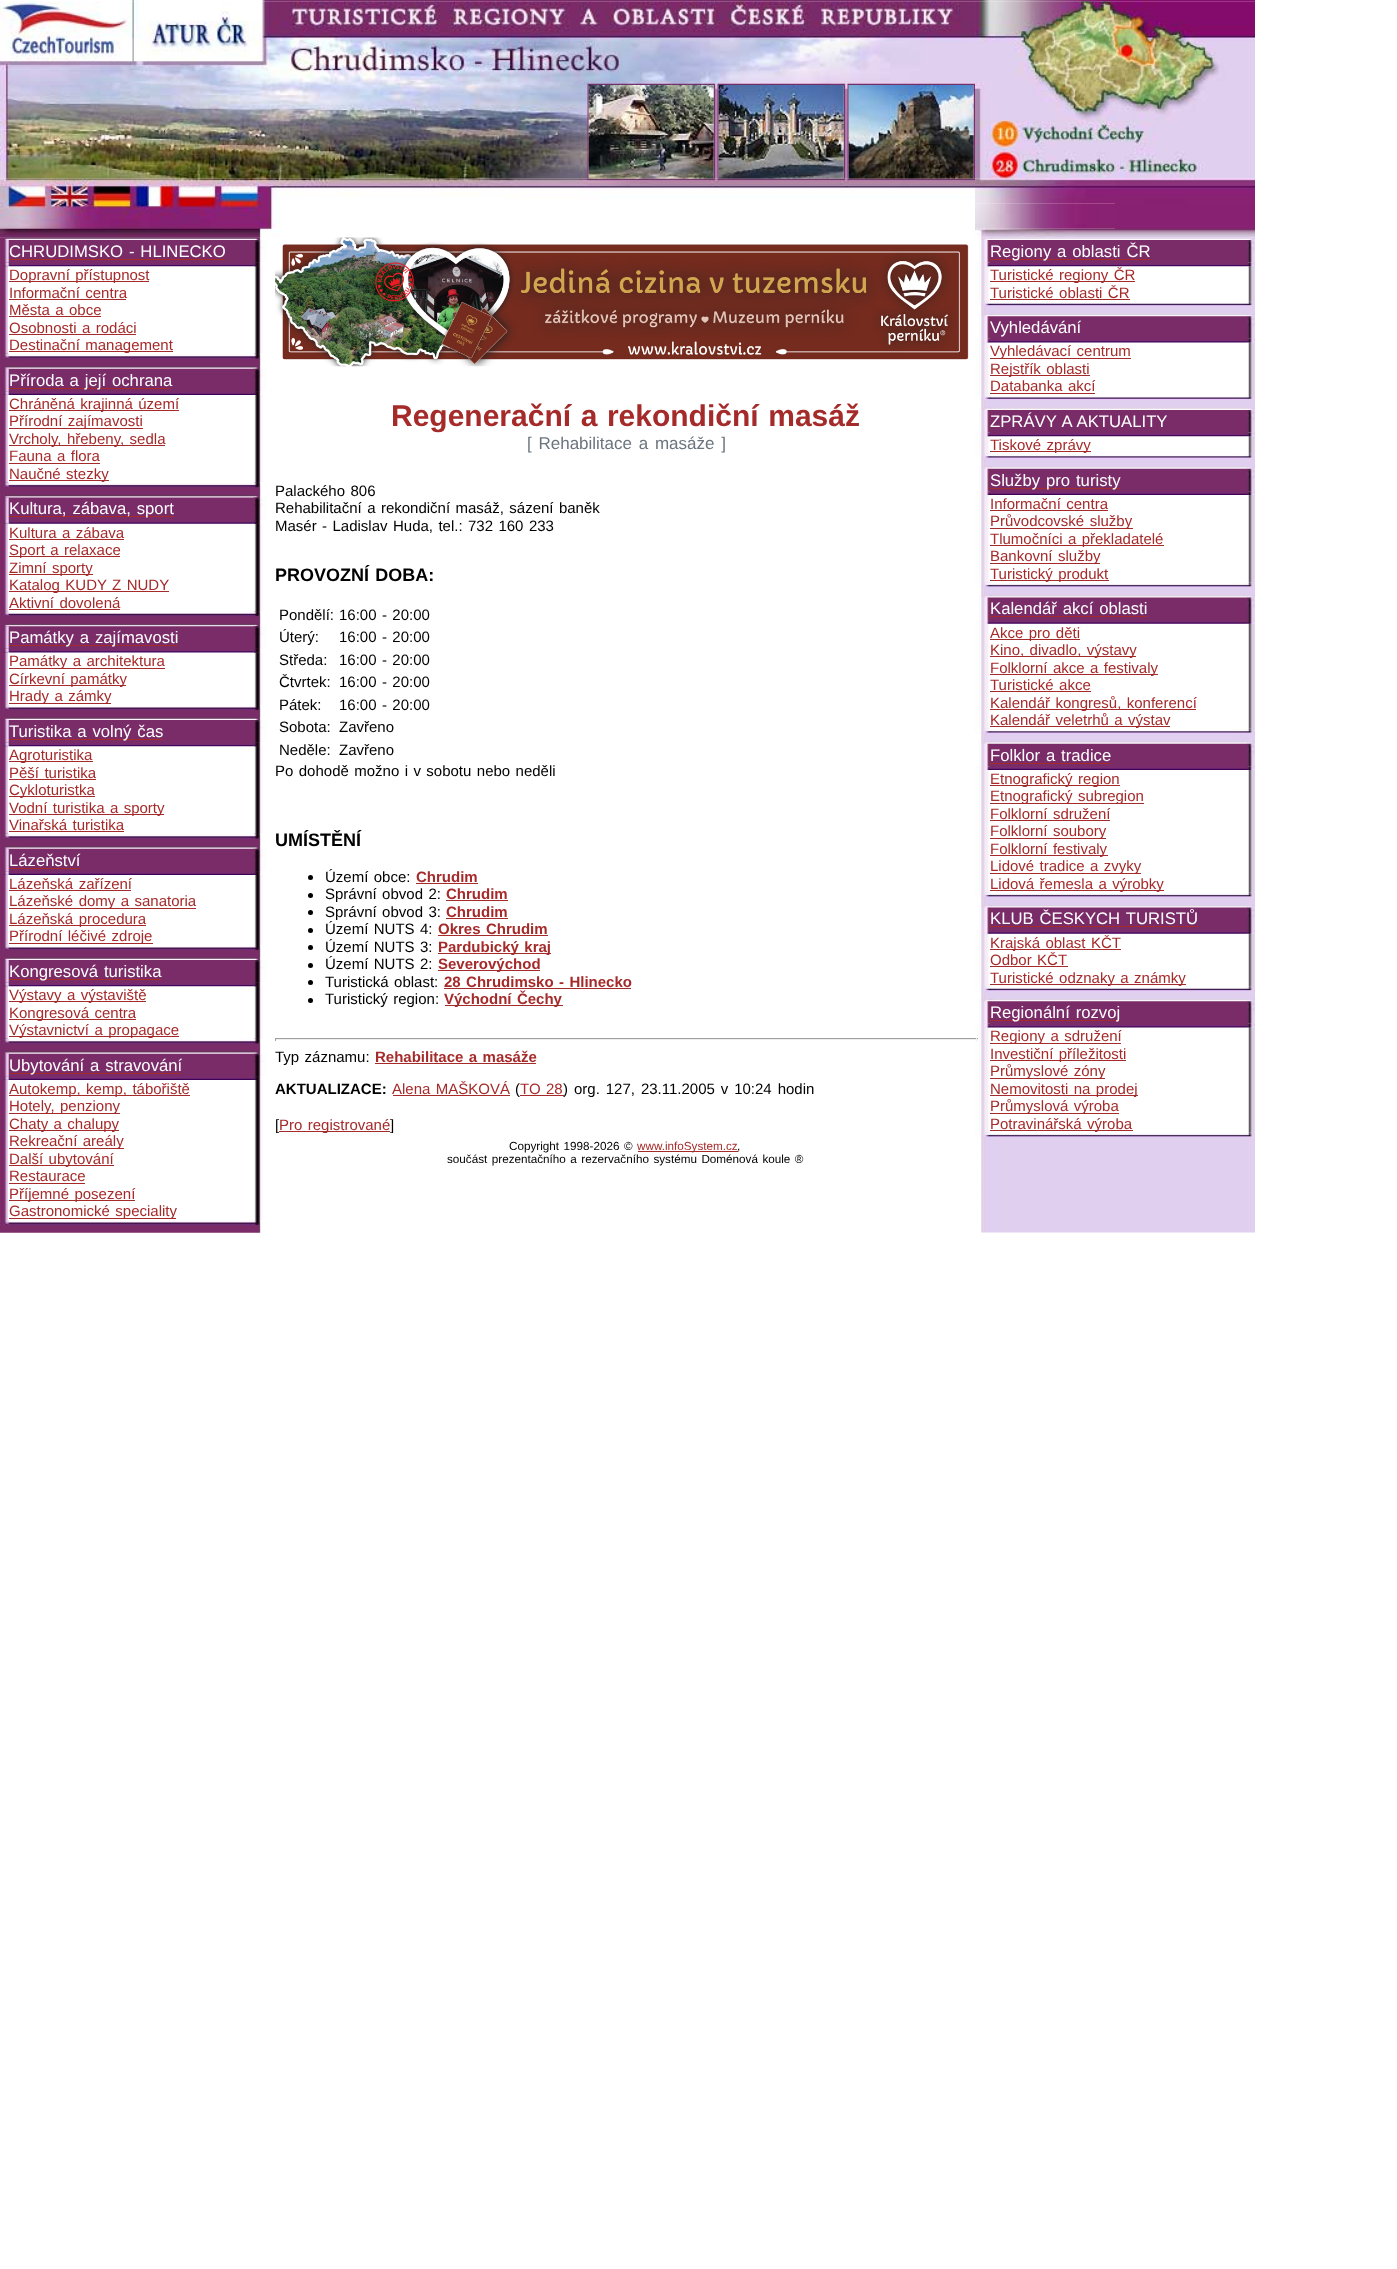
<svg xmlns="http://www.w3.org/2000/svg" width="1397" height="2269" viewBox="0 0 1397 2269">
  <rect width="100%" height="100%" fill="#fff"/>
  <image x="120" y="0" width="1135" height="2" href="img/1.png"/>
  <image x="0" y="1" width="975" height="84" href="img/2.png"/>
  <image x="975" y="1" width="280" height="178" href="img/3.png"/>
  <image x="0" y="85" width="589" height="94" href="img/4.png"/>
  <image x="588" y="85" width="126" height="94" href="img/5.png"/>
  <image x="713" y="85" width="6" height="94" href="img/6.png"/>
  <image x="718" y="85" width="126" height="94" href="img/7.png"/>
  <image x="843" y="85" width="6" height="94" href="img/8.png"/>
  <image x="848" y="85" width="126" height="94" href="img/9.png"/>
  <image x="973" y="85" width="2" height="94" href="img/10.png"/>
  <image x="0" y="237" width="261" height="996" href="img/16.png"/>
  <image x="0" y="178" width="975" height="60" href="img/11.png"/>
  <image x="975" y="178" width="140" height="26" href="img/12.png"/>
  <image x="1115" y="178" width="140" height="25" href="img/13.png"/>
  <image x="975" y="203" width="140" height="26" href="img/14.png"/>
  <path d="M1115 203h140v26H1115z" fill="#882172"/>
  <image x="981" y="237" width="274" height="996" href="img/60.png"/>
  <image x="975" y="228" width="280" height="10" href="img/15.png"/>
  <image x="0" y="237" width="260" height="3" href="img/17.png"/>
  <image x="0" y="240" width="9" height="23" href="img/18.png"/>
  <path d="M9 259h216v1H9z" fill="#a52a2a"/>
  <image x="253" y="240" width="13" height="23" href="img/19.png"/>
  <image x="0" y="266" width="8" height="88" href="img/21.png"/>
  <path d="M8 266h246v88H8z" fill="#fff"/>
  <image x="254" y="266" width="9" height="88" href="img/22.png"/>
  <image x="0" y="262" width="261" height="5" href="img/20.png"/>
  <path d="M9 281h140v1H9z" fill="#a52a2a"/>
  <path d="M9 299h117v1H9z" fill="#a52a2a"/>
  <path d="M9 316h92v1H9z" fill="#a52a2a"/>
  <path d="M9 334h127v1H9z" fill="#a52a2a"/>
  <path d="M9 351h164v1H9z" fill="#a52a2a"/>
  <image x="0" y="366" width="260" height="3" href="img/25.png"/>
  <image x="0" y="368" width="9" height="24" href="img/26.png"/>
  <path d="M9 388h162v1H9z" fill="#a52a2a"/>
  <image x="253" y="368" width="13" height="24" href="img/27.png"/>
  <image x="2" y="391" width="259" height="4" href="img/28.png"/>
  <image x="0" y="395" width="8" height="88" href="img/29.png"/>
  <path d="M8 395h246v88H8z" fill="#fff"/>
  <path d="M9 410h170v1H9z" fill="#a52a2a"/>
  <path d="M9 428h134v1H9z" fill="#a52a2a"/>
  <path d="M9 445h156v1H9z" fill="#a52a2a"/>
  <path d="M9 463h91v1H9z" fill="#a52a2a"/>
  <path d="M9 480h100v1H9z" fill="#a52a2a"/>
  <image x="254" y="395" width="9" height="88" href="img/30.png"/>
  <image x="0" y="495" width="260" height="3" href="img/33.png"/>
  <image x="0" y="497" width="9" height="23" href="img/34.png"/>
  <path d="M9 516h165v1H9z" fill="#a52a2a"/>
  <image x="253" y="497" width="13" height="23" href="img/35.png"/>
  <image x="0" y="523" width="8" height="89" href="img/37.png"/>
  <path d="M8 523h246v89H8z" fill="#fff"/>
  <image x="254" y="523" width="9" height="89" href="img/38.png"/>
  <image x="0" y="520" width="261" height="4" href="img/36.png"/>
  <path d="M9 539h115v1H9z" fill="#a52a2a"/>
  <path d="M9 556h111v1H9z" fill="#a52a2a"/>
  <path d="M9 574h84v1H9z" fill="#a52a2a"/>
  <path d="M9 591h160v1H9z" fill="#a52a2a"/>
  <path d="M9 609h111v1H9z" fill="#a52a2a"/>
  <image x="0" y="611" width="261" height="6" href="img/39.png"/>
  <image x="247" y="616" width="14" height="8" href="img/40.png"/>
  <image x="0" y="623" width="260" height="4" href="img/41.png"/>
  <image x="0" y="626" width="9" height="23" href="img/42.png"/>
  <path d="M9 645h169v1H9z" fill="#a52a2a"/>
  <image x="253" y="626" width="13" height="23" href="img/43.png"/>
  <image x="0" y="652" width="8" height="53" href="img/45.png"/>
  <path d="M8 652h246v53H8z" fill="#fff"/>
  <image x="254" y="652" width="9" height="53" href="img/46.png"/>
  <image x="0" y="648" width="261" height="5" href="img/44.png"/>
  <path d="M9 668h156v1H9z" fill="#a52a2a"/>
  <path d="M9 685h117v1H9z" fill="#a52a2a"/>
  <path d="M9 703h102v1H9z" fill="#a52a2a"/>
  <image x="0" y="705" width="261" height="5" href="img/47.png"/>
  <image x="259" y="710" width="2" height="7" href="img/48.png"/>
  <image x="0" y="717" width="260" height="3" href="img/49.png"/>
  <image x="0" y="720" width="9" height="23" href="img/18.png"/>
  <path d="M9 739h154v1H9z" fill="#a52a2a"/>
  <image x="253" y="720" width="13" height="23" href="img/19.png"/>
  <image x="0" y="746" width="8" height="88" href="img/21.png"/>
  <path d="M8 746h246v88H8z" fill="#fff"/>
  <image x="254" y="746" width="9" height="88" href="img/22.png"/>
  <image x="0" y="742" width="261" height="5" href="img/20.png"/>
  <path d="M9 761h84v1H9z" fill="#a52a2a"/>
  <path d="M9 779h87v1H9z" fill="#a52a2a"/>
  <path d="M9 796h86v1H9z" fill="#a52a2a"/>
  <path d="M9 814h155v1H9z" fill="#a52a2a"/>
  <path d="M9 831h115v1H9z" fill="#a52a2a"/>
  <image x="0" y="833" width="261" height="6" href="img/50.png"/>
  <image x="247" y="838" width="14" height="8" href="img/24.png"/>
  <image x="0" y="846" width="260" height="3" href="img/25.png"/>
  <image x="0" y="848" width="9" height="24" href="img/26.png"/>
  <path d="M9 868h71v1H9z" fill="#a52a2a"/>
  <image x="253" y="848" width="13" height="24" href="img/27.png"/>
  <image x="2" y="871" width="259" height="4" href="img/28.png"/>
  <image x="0" y="875" width="8" height="70" href="img/51.png"/>
  <path d="M8 875h246v70H8z" fill="#fff"/>
  <path d="M9 890h122v1H9z" fill="#a52a2a"/>
  <path d="M9 908h187v1H9z" fill="#a52a2a"/>
  <path d="M9 925h137v1H9z" fill="#a52a2a"/>
  <path d="M9 943h144v1H9z" fill="#a52a2a"/>
  <image x="254" y="875" width="9" height="70" href="img/52.png"/>
  <image x="0" y="945" width="261" height="5" href="img/47.png"/>
  <image x="259" y="950" width="2" height="7" href="img/48.png"/>
  <image x="0" y="957" width="260" height="3" href="img/49.png"/>
  <image x="0" y="960" width="9" height="23" href="img/18.png"/>
  <path d="M9 979h152v1H9z" fill="#a52a2a"/>
  <image x="253" y="960" width="13" height="23" href="img/19.png"/>
  <image x="0" y="986" width="8" height="53" href="img/53.png"/>
  <path d="M8 986h246v53H8z" fill="#fff"/>
  <image x="254" y="986" width="9" height="53" href="img/54.png"/>
  <image x="0" y="982" width="261" height="5" href="img/20.png"/>
  <path d="M9 1001h137v1H9z" fill="#a52a2a"/>
  <path d="M9 1019h127v1H9z" fill="#a52a2a"/>
  <path d="M9 1036h170v1H9z" fill="#a52a2a"/>
  <image x="0" y="1051" width="260" height="3" href="img/25.png"/>
  <image x="0" y="1053" width="9" height="24" href="img/26.png"/>
  <path d="M9 1073h172v1H9z" fill="#a52a2a"/>
  <image x="253" y="1053" width="13" height="24" href="img/27.png"/>
  <image x="2" y="1076" width="259" height="4" href="img/28.png"/>
  <image x="0" y="1080" width="8" height="140" href="img/56.png"/>
  <path d="M8 1080h246v140H8z" fill="#fff"/>
  <path d="M9 1095h181v1H9z" fill="#a52a2a"/>
  <path d="M9 1113h111v1H9z" fill="#a52a2a"/>
  <path d="M9 1130h110v1H9z" fill="#a52a2a"/>
  <path d="M9 1148h115v1H9z" fill="#a52a2a"/>
  <path d="M9 1165h105v1H9z" fill="#a52a2a"/>
  <path d="M9 1183h76v1H9z" fill="#a52a2a"/>
  <path d="M9 1200h126v1H9z" fill="#a52a2a"/>
  <path d="M9 1218h167v1H9z" fill="#a52a2a"/>
  <image x="254" y="1080" width="9" height="140" href="img/57.png"/>
  <image x="0" y="1220" width="261" height="5" href="img/47.png"/>
  <image x="0" y="1225" width="261" height="8" href="img/58.png"/>
  <image x="275" y="237" width="694" height="130" href="img/59.png"/>
  <circle cx="310.5" cy="877.5" r="2.5" fill="#000"/>
  <path d="M416 883h62v1H416z" fill="#a52a2a"/>
  <circle cx="310.5" cy="895.5" r="2.5" fill="#000"/>
  <path d="M446 900h62v1H446z" fill="#a52a2a"/>
  <circle cx="310.5" cy="912.5" r="2.5" fill="#000"/>
  <path d="M446 918h62v1H446z" fill="#a52a2a"/>
  <circle cx="310.5" cy="930.5" r="2.5" fill="#000"/>
  <path d="M438 935h110v1H438z" fill="#a52a2a"/>
  <circle cx="310.5" cy="947.5" r="2.5" fill="#000"/>
  <path d="M438 953h113v1H438z" fill="#a52a2a"/>
  <circle cx="310.5" cy="965.5" r="2.5" fill="#000"/>
  <path d="M438 970h102v1H438z" fill="#a52a2a"/>
  <circle cx="310.5" cy="982.5" r="2.5" fill="#000"/>
  <path d="M444 988h187v1H444z" fill="#a52a2a"/>
  <circle cx="310.5" cy="1000.5" r="2.5" fill="#000"/>
  <path d="M445 1005h118v1H445z" fill="#a52a2a"/>
  <image x="975" y="1027" width="15" height="106" href="img/103.png"/>
  <path d="M275 1038h703v1H275z" fill="#9f9f9f"/>
  <path d="M976 1038h1v3H976z" fill="#eee"/>
  <path d="M275 1039h703v1H275z" fill="#eee"/>
  <path d="M275 1038h1v3H275z" fill="#9f9f9f"/>
  <path d="M375 1063h161v1H375z" fill="#a52a2a"/>
  <path d="M393 1095h117v1H393z" fill="#a52a2a"/>
  <path d="M638 1151h100v1H638z" fill="#a52a2a"/>
  <image x="978" y="237" width="277" height="3" href="img/61.png"/>
  <image x="979" y="240" width="11" height="23" href="img/62.png"/>
  <path d="M990 240h258v23H990z" fill="#7a2c68"/>
  <path d="M990 259h160v1H990z" fill="#a52a2a"/>
  <image x="1247" y="240" width="8" height="23" href="img/63.png"/>
  <image x="975" y="266" width="15" height="36" href="img/65.png"/>
  <path d="M990 266h258v36H990z" fill="#fff"/>
  <image x="1248" y="266" width="7" height="36" href="img/66.png"/>
  <image x="975" y="262" width="280" height="5" href="img/64.png"/>
  <path d="M990 281h145v1H990z" fill="#a52a2a"/>
  <path d="M990 299h140v1H990z" fill="#a52a2a"/>
  <image x="975" y="301" width="280" height="6" href="img/67.png"/>
  <path d="M994 306h1v1H994z" fill="#dfcff0"/>
  <path d="M990 316h258v23H990z" fill="#7a2c68"/>
  <image x="978" y="313" width="277" height="4" href="img/68.png"/>
  <image x="979" y="316" width="11" height="23" href="img/69.png"/>
  <image x="1247" y="316" width="8" height="23" href="img/70.png"/>
  <image x="975" y="342" width="15" height="53" href="img/72.png"/>
  <path d="M990 342h258v53H990z" fill="#fff"/>
  <image x="1248" y="342" width="7" height="53" href="img/73.png"/>
  <image x="975" y="338" width="280" height="5" href="img/71.png"/>
  <path d="M990 358h141v1H990z" fill="#a52a2a"/>
  <path d="M990 375h100v1H990z" fill="#a52a2a"/>
  <path d="M990 393h105v1H990z" fill="#a52a2a"/>
  <image x="975" y="395" width="280" height="5" href="img/74.png"/>
  <image x="978" y="407" width="277" height="3" href="img/75.png"/>
  <image x="979" y="410" width="11" height="23" href="img/62.png"/>
  <path d="M990 410h258v23H990z" fill="#7a2c68"/>
  <image x="1247" y="410" width="8" height="23" href="img/63.png"/>
  <image x="975" y="436" width="15" height="18" href="img/76.png"/>
  <path d="M990 436h258v18H990z" fill="#fff"/>
  <image x="1248" y="436" width="7" height="18" href="img/77.png"/>
  <image x="975" y="432" width="280" height="5" href="img/64.png"/>
  <path d="M990 451h101v1H990z" fill="#a52a2a"/>
  <path d="M990 468h258v24H990z" fill="#7a2c68"/>
  <image x="978" y="466" width="277" height="3" href="img/79.png"/>
  <image x="979" y="468" width="11" height="24" href="img/80.png"/>
  <path d="M990 488h130v1H990z" fill="#a52a2a"/>
  <image x="1247" y="468" width="8" height="24" href="img/81.png"/>
  <image x="975" y="491" width="280" height="4" href="img/82.png"/>
  <image x="975" y="495" width="15" height="88" href="img/83.png"/>
  <path d="M990 495h258v88H990z" fill="#fff"/>
  <path d="M990 510h118v1H990z" fill="#a52a2a"/>
  <path d="M990 528h143v1H990z" fill="#a52a2a"/>
  <path d="M990 545h174v1H990z" fill="#a52a2a"/>
  <path d="M990 563h110v1H990z" fill="#a52a2a"/>
  <path d="M990 580h119v1H990z" fill="#a52a2a"/>
  <image x="1248" y="495" width="7" height="88" href="img/84.png"/>
  <path d="M990 597h258v23H990z" fill="#7a2c68"/>
  <image x="978" y="595" width="277" height="3" href="img/87.png"/>
  <image x="979" y="597" width="11" height="23" href="img/88.png"/>
  <path d="M990 616h158v1H990z" fill="#a52a2a"/>
  <image x="1247" y="597" width="8" height="23" href="img/89.png"/>
  <image x="975" y="623" width="15" height="106" href="img/91.png"/>
  <path d="M990 623h258v106H990z" fill="#fff"/>
  <image x="1248" y="623" width="7" height="106" href="img/92.png"/>
  <image x="975" y="620" width="280" height="4" href="img/90.png"/>
  <path d="M990 639h90v1H990z" fill="#a52a2a"/>
  <path d="M990 656h146v1H990z" fill="#a52a2a"/>
  <path d="M990 674h168v1H990z" fill="#a52a2a"/>
  <path d="M990 691h101v1H990z" fill="#a52a2a"/>
  <path d="M990 709h206v1H990z" fill="#a52a2a"/>
  <path d="M990 726h180v1H990z" fill="#a52a2a"/>
  <path d="M990 743h258v24H990z" fill="#7a2c68"/>
  <image x="978" y="741" width="277" height="3" href="img/94.png"/>
  <image x="979" y="743" width="11" height="24" href="img/95.png"/>
  <path d="M990 763h121v1H990z" fill="#a52a2a"/>
  <image x="1247" y="743" width="8" height="24" href="img/81.png"/>
  <image x="975" y="766" width="280" height="4" href="img/82.png"/>
  <image x="975" y="770" width="15" height="123" href="img/96.png"/>
  <path d="M990 770h258v123H990z" fill="#fff"/>
  <path d="M990 785h130v1H990z" fill="#a52a2a"/>
  <path d="M990 803h154v1H990z" fill="#a52a2a"/>
  <path d="M990 820h120v1H990z" fill="#a52a2a"/>
  <path d="M990 838h116v1H990z" fill="#a52a2a"/>
  <path d="M990 855h118v1H990z" fill="#a52a2a"/>
  <path d="M990 873h151v1H990z" fill="#a52a2a"/>
  <path d="M990 890h174v1H990z" fill="#a52a2a"/>
  <image x="1248" y="770" width="7" height="123" href="img/97.png"/>
  <path d="M990 907h258v23H990z" fill="#7a2c68"/>
  <image x="978" y="905" width="277" height="3" href="img/87.png"/>
  <image x="979" y="907" width="11" height="23" href="img/88.png"/>
  <path d="M990 926h208v1H990z" fill="#a52a2a"/>
  <image x="1247" y="907" width="8" height="23" href="img/89.png"/>
  <image x="975" y="933" width="15" height="54" href="img/99.png"/>
  <path d="M990 933h258v54H990z" fill="#fff"/>
  <image x="1248" y="933" width="7" height="54" href="img/100.png"/>
  <image x="975" y="930" width="280" height="4" href="img/90.png"/>
  <path d="M990 949h131v1H990z" fill="#a52a2a"/>
  <path d="M990 966h78v1H990z" fill="#a52a2a"/>
  <path d="M990 984h196v1H990z" fill="#a52a2a"/>
  <path d="M990 1001h258v23H990z" fill="#7a2c68"/>
  <image x="978" y="998" width="277" height="4" href="img/68.png"/>
  <image x="979" y="1001" width="11" height="23" href="img/102.png"/>
  <path d="M990 1020h130v1H990z" fill="#a52a2a"/>
  <image x="1247" y="1001" width="8" height="23" href="img/70.png"/>
  <path d="M990 1027h258v106H990z" fill="#fff"/>
  <image x="1248" y="1027" width="7" height="106" href="img/104.png"/>
  <image x="975" y="1023" width="280" height="5" href="img/71.png"/>
  <path d="M990 1043h131v1H990z" fill="#a52a2a"/>
  <path d="M990 1060h136v1H990z" fill="#a52a2a"/>
  <path d="M990 1078h115v1H990z" fill="#a52a2a"/>
  <path d="M990 1095h148v1H990z" fill="#a52a2a"/>
  <path d="M990 1113h129v1H990z" fill="#a52a2a"/>
  <path d="M990 1130h143v1H990z" fill="#a52a2a"/>
  <text x="9" y="257" word-spacing="1.25" font-family="Liberation Sans" font-size="16.7" fill="#fff">CHRUDIMSKO - HLINECKO</text>
  <g font-family="Liberation Sans" font-size="15" fill="#a52a2a">
    <text x="9" y="280" word-spacing="1.25">Dopravní přístupnost</text>
    <text x="9" y="298" word-spacing="1.25">Informační centra</text>
    <text x="9" y="315" word-spacing="1.25">Města a obce</text>
    <text x="9" y="333" word-spacing="1.25">Osobnosti a rodáci</text>
    <text x="9" y="350" word-spacing="1.25">Destinační management</text>
  </g>
  <image x="0" y="353" width="261" height="6" href="img/23.png"/>
  <image x="247" y="358" width="14" height="8" href="img/24.png"/>
  <text x="9" y="386" word-spacing="1.25" font-family="Liberation Sans" font-size="16.7" fill="#fff">Příroda a její ochrana</text>
  <g font-family="Liberation Sans" font-size="15" fill="#a52a2a">
    <text x="9" y="409" word-spacing="1.25">Chráněná krajinná území</text>
    <text x="9" y="426" word-spacing="1.25">Přírodní zajímavosti</text>
    <text x="9" y="444" word-spacing="1.25">Vrcholy, hřebeny, sedla</text>
    <text x="9" y="461" word-spacing="1.25">Fauna a flora</text>
    <text x="9" y="479" word-spacing="1.25">Naučné stezky</text>
  </g>
  <image x="0" y="482" width="261" height="6" href="img/31.png"/>
  <image x="4" y="487" width="257" height="8" href="img/32.png"/>
  <text x="9" y="514" word-spacing="1.25" font-family="Liberation Sans" font-size="16.7" fill="#fff">Kultura, zábava, sport</text>
  <g font-family="Liberation Sans" font-size="15" fill="#a52a2a">
    <text x="9" y="538" word-spacing="1.25">Kultura a zábava</text>
    <text x="9" y="555" word-spacing="1.25">Sport a relaxace</text>
    <text x="9" y="573" word-spacing="1.25">Zimní sporty</text>
    <text x="9" y="590" word-spacing="1.25">Katalog KUDY Z NUDY</text>
    <text x="9" y="608" word-spacing="1.25">Aktivní dovolená</text>
  </g>
  <text x="9" y="643" word-spacing="1.25" font-family="Liberation Sans" font-size="16.7" fill="#fff">Památky a zajímavosti</text>
  <g font-family="Liberation Sans" font-size="15" fill="#a52a2a">
    <text x="9" y="666" word-spacing="1.25">Památky a architektura</text>
    <text x="9" y="684" word-spacing="1.25">Církevní památky</text>
    <text x="9" y="701" word-spacing="1.25">Hrady a zámky</text>
  </g>
  <text x="9" y="737" word-spacing="1.25" font-family="Liberation Sans" font-size="16.7" fill="#fff">Turistika a volný čas</text>
  <g font-family="Liberation Sans" font-size="15" fill="#a52a2a">
    <text x="9" y="760">Agroturistika</text>
    <text x="9" y="778" word-spacing="1.25">Pěší turistika</text>
    <text x="9" y="795">Cykloturistka</text>
    <text x="9" y="813" word-spacing="1.25">Vodní turistika a sporty</text>
    <text x="9" y="830" word-spacing="1.25">Vinařská turistika</text>
  </g>
  <text x="9" y="866" font-family="Liberation Sans" font-size="16.7" fill="#fff">Lázeňství</text>
  <g font-family="Liberation Sans" font-size="15" fill="#a52a2a">
    <text x="9" y="889" word-spacing="1.25">Lázeňská zařízení</text>
    <text x="9" y="906" word-spacing="1.25">Lázeňské domy a sanatoria</text>
    <text x="9" y="924" word-spacing="1.25">Lázeňská procedura</text>
    <text x="9" y="941" word-spacing="1.25">Přírodní léčivé zdroje</text>
  </g>
  <text x="9" y="977" word-spacing="1.25" font-family="Liberation Sans" font-size="16.7" fill="#fff">Kongresová turistika</text>
  <g font-family="Liberation Sans" font-size="15" fill="#a52a2a">
    <text x="9" y="1000" word-spacing="1.25">Výstavy a výstaviště</text>
    <text x="9" y="1018" word-spacing="1.25">Kongresová centra</text>
    <text x="9" y="1035" word-spacing="1.25">Výstavnictví a propagace</text>
  </g>
  <image x="0" y="1038" width="261" height="6" href="img/55.png"/>
  <image x="247" y="1043" width="14" height="8" href="img/24.png"/>
  <text x="9" y="1071" word-spacing="1.25" font-family="Liberation Sans" font-size="16.7" fill="#fff">Ubytování a stravování</text>
  <g font-family="Liberation Sans" font-size="15" fill="#a52a2a">
    <text x="9" y="1094" word-spacing="1.25">Autokemp, kemp, tábořiště</text>
    <text x="9" y="1111" word-spacing="1.25">Hotely, penziony</text>
    <text x="9" y="1129" word-spacing="1.25">Chaty a chalupy</text>
    <text x="9" y="1146" word-spacing="1.25">Rekreační areály</text>
    <text x="9" y="1164" word-spacing="1.25">Další ubytování</text>
    <text x="9" y="1181">Restaurace</text>
    <text x="9" y="1199" word-spacing="1.25">Příjemné posezení</text>
    <text x="9" y="1216" word-spacing="1.25">Gastronomické speciality</text>
  </g>
  <text x="391" y="426" word-spacing="1.25" font-family="Liberation Sans" font-size="30" font-weight="bold" fill="#a52a2a">Regenerační a rekondiční masáž</text>
  <text x="527" y="449" word-spacing="2" font-family="Liberation Sans" font-size="17" fill="#6c757d">[ Rehabilitace a masáže ]</text>
  <g font-family="Liberation Sans" font-size="15" fill="#000">
    <text x="275" y="496" word-spacing="1.25">Palackého 806</text>
    <text x="275" y="513" word-spacing="1.25">Rehabilitační a rekondiční masáž, sázení baněk</text>
    <text x="275" y="531" word-spacing="1.25">Masér - Ladislav Huda, tel.: 732 160 233</text>
  </g>
  <text x="275" y="581" word-spacing="1.25" font-family="Liberation Sans" font-size="18" font-weight="bold" fill="#000">PROVOZNÍ DOBA:</text>
  <g font-family="Liberation Sans" font-size="15" fill="#000">
    <text x="279" y="620">Pondělí:</text>
    <text x="339" y="620" word-spacing="1.25">16:00 - 20:00</text>
    <text x="279" y="642">Úterý:</text>
    <text x="339" y="642" word-spacing="1.25">16:00 - 20:00</text>
    <text x="279" y="665">Středa:</text>
    <text x="339" y="665" word-spacing="1.25">16:00 - 20:00</text>
    <text x="279" y="687">Čtvrtek:</text>
    <text x="339" y="687" word-spacing="1.25">16:00 - 20:00</text>
    <text x="279" y="710">Pátek:</text>
    <text x="339" y="710" word-spacing="1.25">16:00 - 20:00</text>
    <text x="279" y="732">Sobota:</text>
    <text x="339" y="732">Zavřeno</text>
    <text x="279" y="755">Neděle:</text>
    <text x="339" y="755">Zavřeno</text>
    <text x="275" y="776" word-spacing="1.25">Po dohodě možno i v sobotu nebo neděli</text>
  </g>
  <text x="275" y="846" font-family="Liberation Sans" font-size="18" font-weight="bold" fill="#000">UMÍSTĚNÍ</text>
  <text x="325" y="882" word-spacing="1.25" font-family="Liberation Sans" font-size="15" fill="#000">Území obce:</text>
  <text x="416" y="882" font-family="Liberation Sans" font-size="15" font-weight="bold" fill="#a52a2a">Chrudim</text>
  <text x="325" y="899" word-spacing="1.25" font-family="Liberation Sans" font-size="15" fill="#000">Správní obvod 2:</text>
  <text x="446" y="899" font-family="Liberation Sans" font-size="15" font-weight="bold" fill="#a52a2a">Chrudim</text>
  <text x="325" y="917" word-spacing="1.25" font-family="Liberation Sans" font-size="15" fill="#000">Správní obvod 3:</text>
  <text x="446" y="917" font-family="Liberation Sans" font-size="15" font-weight="bold" fill="#a52a2a">Chrudim</text>
  <text x="325" y="934" word-spacing="1.25" font-family="Liberation Sans" font-size="15" fill="#000">Území NUTS 4:</text>
  <text x="438" y="934" word-spacing="1.25" font-family="Liberation Sans" font-size="15" font-weight="bold" fill="#a52a2a">Okres Chrudim</text>
  <text x="325" y="952" word-spacing="1.25" font-family="Liberation Sans" font-size="15" fill="#000">Území NUTS 3:</text>
  <text x="438" y="952" word-spacing="1.25" font-family="Liberation Sans" font-size="15" font-weight="bold" fill="#a52a2a">Pardubický kraj</text>
  <text x="325" y="969" word-spacing="1.25" font-family="Liberation Sans" font-size="15" fill="#000">Území NUTS 2:</text>
  <text x="438" y="969" font-family="Liberation Sans" font-size="15" font-weight="bold" fill="#a52a2a">Severovýchod</text>
  <text x="325" y="987" word-spacing="1.25" font-family="Liberation Sans" font-size="15" fill="#000">Turistická oblast:</text>
  <text x="444" y="987" word-spacing="1.25" font-family="Liberation Sans" font-size="15" font-weight="bold" fill="#a52a2a">28 Chrudimsko - Hlinecko</text>
  <text x="325" y="1004" word-spacing="1.25" font-family="Liberation Sans" font-size="15" fill="#000">Turistický region:</text>
  <text x="444" y="1004" word-spacing="1.25" font-family="Liberation Sans" font-size="15" font-weight="bold" fill="#a52a2a">Východní Čechy</text>
  <text x="275" y="1062" word-spacing="1.25" font-family="Liberation Sans" font-size="15" fill="#000">Typ záznamu:</text>
  <text x="375" y="1062" word-spacing="1.25" font-family="Liberation Sans" font-size="15" font-weight="bold" fill="#a52a2a">Rehabilitace a masáže</text>
  <text x="275" y="1094" font-family="Liberation Sans" font-size="15" font-weight="bold" fill="#000">AKTUALIZACE:</text>
  <text x="392" y="1094" word-spacing="1.25" font-family="Liberation Sans" font-size="15" fill="#a52a2a">Alena MAŠKOVÁ</text>
  <text x="515" y="1094" font-family="Liberation Sans" font-size="15" fill="#000">(</text>
  <text x="520" y="1094" word-spacing="1.25" font-family="Liberation Sans" font-size="15" fill="#a52a2a">TO 28</text>
  <path d="M520 1095h44v1H520z" fill="#a52a2a"/>
  <g font-family="Liberation Sans" font-size="15" fill="#000">
    <text x="563" y="1094">)</text>
    <text x="574" y="1094" word-spacing="1.75">org. 127, 23.11.2005 v 10:24 hodin</text>
    <text x="275" y="1130">[</text>
  </g>
  <path d="M279 1131h111v1H279z" fill="#a52a2a"/>
  <text x="279" y="1130" word-spacing="1.25" font-family="Liberation Sans" font-size="15" fill="#a52a2a">Pro registrované</text>
  <text x="390" y="1130" font-family="Liberation Sans" font-size="15" fill="#000">]</text>
  <text x="509" y="1150" word-spacing="1.25" font-family="Liberation Sans" font-size="11.7" fill="#000">Copyright 1998-2026 ©</text>
  <text x="637" y="1150" font-family="Liberation Sans" font-size="11.7" fill="#a52a2a">www.infoSystem.cz</text>
  <g font-family="Liberation Sans" font-size="11.7" fill="#000">
    <text x="737" y="1150">,</text>
    <text x="447" y="1163" word-spacing="1.25">součást prezentačního a rezervačního systému Doménová koule ®</text>
  </g>
  <text x="990" y="257" word-spacing="1.25" font-family="Liberation Sans" font-size="16.7" fill="#fff">Regiony a oblasti ČR</text>
  <g font-family="Liberation Sans" font-size="15" fill="#a52a2a">
    <text x="990" y="280" word-spacing="1.25">Turistické regiony ČR</text>
    <text x="990" y="298" word-spacing="1.25">Turistické oblasti ČR</text>
  </g>
  <text x="990" y="333" font-family="Liberation Sans" font-size="16.7" fill="#fff">Vyhledávání</text>
  <g font-family="Liberation Sans" font-size="15" fill="#a52a2a">
    <text x="990" y="356" word-spacing="1.25">Vyhledávací centrum</text>
    <text x="990" y="374" word-spacing="1.25">Rejstřík oblasti</text>
    <text x="990" y="391" word-spacing="1.25">Databanka akcí</text>
  </g>
  <text x="990" y="427" word-spacing="1.25" font-family="Liberation Sans" font-size="16.7" fill="#fff">ZPRÁVY A AKTUALITY</text>
  <text x="990" y="450" word-spacing="1.25" font-family="Liberation Sans" font-size="15" fill="#a52a2a">Tiskové zprávy</text>
  <image x="975" y="453" width="280" height="6" href="img/78.png"/>
  <text x="990" y="486" word-spacing="1.25" font-family="Liberation Sans" font-size="16.7" fill="#fff">Služby pro turisty</text>
  <g font-family="Liberation Sans" font-size="15" fill="#a52a2a">
    <text x="990" y="509" word-spacing="1.25">Informační centra</text>
    <text x="990" y="526" word-spacing="1.25">Průvodcovské služby</text>
    <text x="990" y="544" word-spacing="1.25">Tlumočníci a překladatelé</text>
    <text x="990" y="561" word-spacing="1.25">Bankovní služby</text>
    <text x="990" y="579" word-spacing="1.25">Turistický produkt</text>
  </g>
  <image x="975" y="582" width="280" height="6" href="img/85.png"/>
  <image x="984" y="587" width="263" height="1" href="img/86.png"/>
  <text x="990" y="614" word-spacing="1.25" font-family="Liberation Sans" font-size="16.7" fill="#fff">Kalendář akcí oblasti</text>
  <g font-family="Liberation Sans" font-size="15" fill="#a52a2a">
    <text x="990" y="638" word-spacing="1.25">Akce pro děti</text>
    <text x="990" y="655" word-spacing="1.25">Kino, divadlo, výstavy</text>
    <text x="990" y="673" word-spacing="1.25">Folklorní akce a festivaly</text>
    <text x="990" y="690" word-spacing="1.25">Turistické akce</text>
    <text x="990" y="708" word-spacing="1.25">Kalendář kongresů, konferencí</text>
    <text x="990" y="725" word-spacing="1.25">Kalendář veletrhů a výstav</text>
  </g>
  <image x="975" y="728" width="280" height="6" href="img/93.png"/>
  <text x="990" y="761" word-spacing="1.25" font-family="Liberation Sans" font-size="16.7" fill="#fff">Folklor a tradice</text>
  <g font-family="Liberation Sans" font-size="15" fill="#a52a2a">
    <text x="990" y="784" word-spacing="1.25">Etnografický region</text>
    <text x="990" y="801" word-spacing="1.25">Etnografický subregion</text>
    <text x="990" y="819" word-spacing="1.25">Folklorní sdružení</text>
    <text x="990" y="836" word-spacing="1.25">Folklorní soubory</text>
    <text x="990" y="854" word-spacing="1.25">Folklorní festivaly</text>
    <text x="990" y="871" word-spacing="1.25">Lidové tradice a zvyky</text>
    <text x="990" y="889" word-spacing="1.25">Lidová řemesla a výrobky</text>
  </g>
  <image x="975" y="892" width="280" height="6" href="img/98.png"/>
  <image x="984" y="897" width="263" height="1" href="img/86.png"/>
  <text x="990" y="924" word-spacing="1.25" font-family="Liberation Sans" font-size="16.7" fill="#fff">KLUB ČESKYCH TURISTŮ</text>
  <g font-family="Liberation Sans" font-size="15" fill="#a52a2a">
    <text x="990" y="948" word-spacing="1.25">Krajská oblast KČT</text>
    <text x="990" y="965" word-spacing="1.25">Odbor KČT</text>
    <text x="990" y="983" word-spacing="1.25">Turistické odznaky a známky</text>
  </g>
  <image x="975" y="986" width="280" height="6" href="img/101.png"/>
  <path d="M994 991h1v1H994z" fill="#dfcff0"/>
  <text x="990" y="1018" word-spacing="1.25" font-family="Liberation Sans" font-size="16.7" fill="#fff">Regionální rozvoj</text>
  <g font-family="Liberation Sans" font-size="15" fill="#a52a2a">
    <text x="990" y="1041" word-spacing="1.25">Regiony a sdružení</text>
    <text x="990" y="1059" word-spacing="1.25">Investiční příležitosti</text>
    <text x="990" y="1076" word-spacing="1.25">Průmyslové zóny</text>
    <text x="990" y="1094" word-spacing="1.25">Nemovitosti na prodej</text>
    <text x="990" y="1111" word-spacing="1.25">Průmyslová výroba</text>
    <text x="990" y="1129" word-spacing="1.25">Potravinářská výroba</text>
  </g>
  <image x="975" y="1132" width="280" height="6" href="img/105.png"/>
  <image x="984" y="1137" width="263" height="1" href="img/86.png"/>
</svg>
